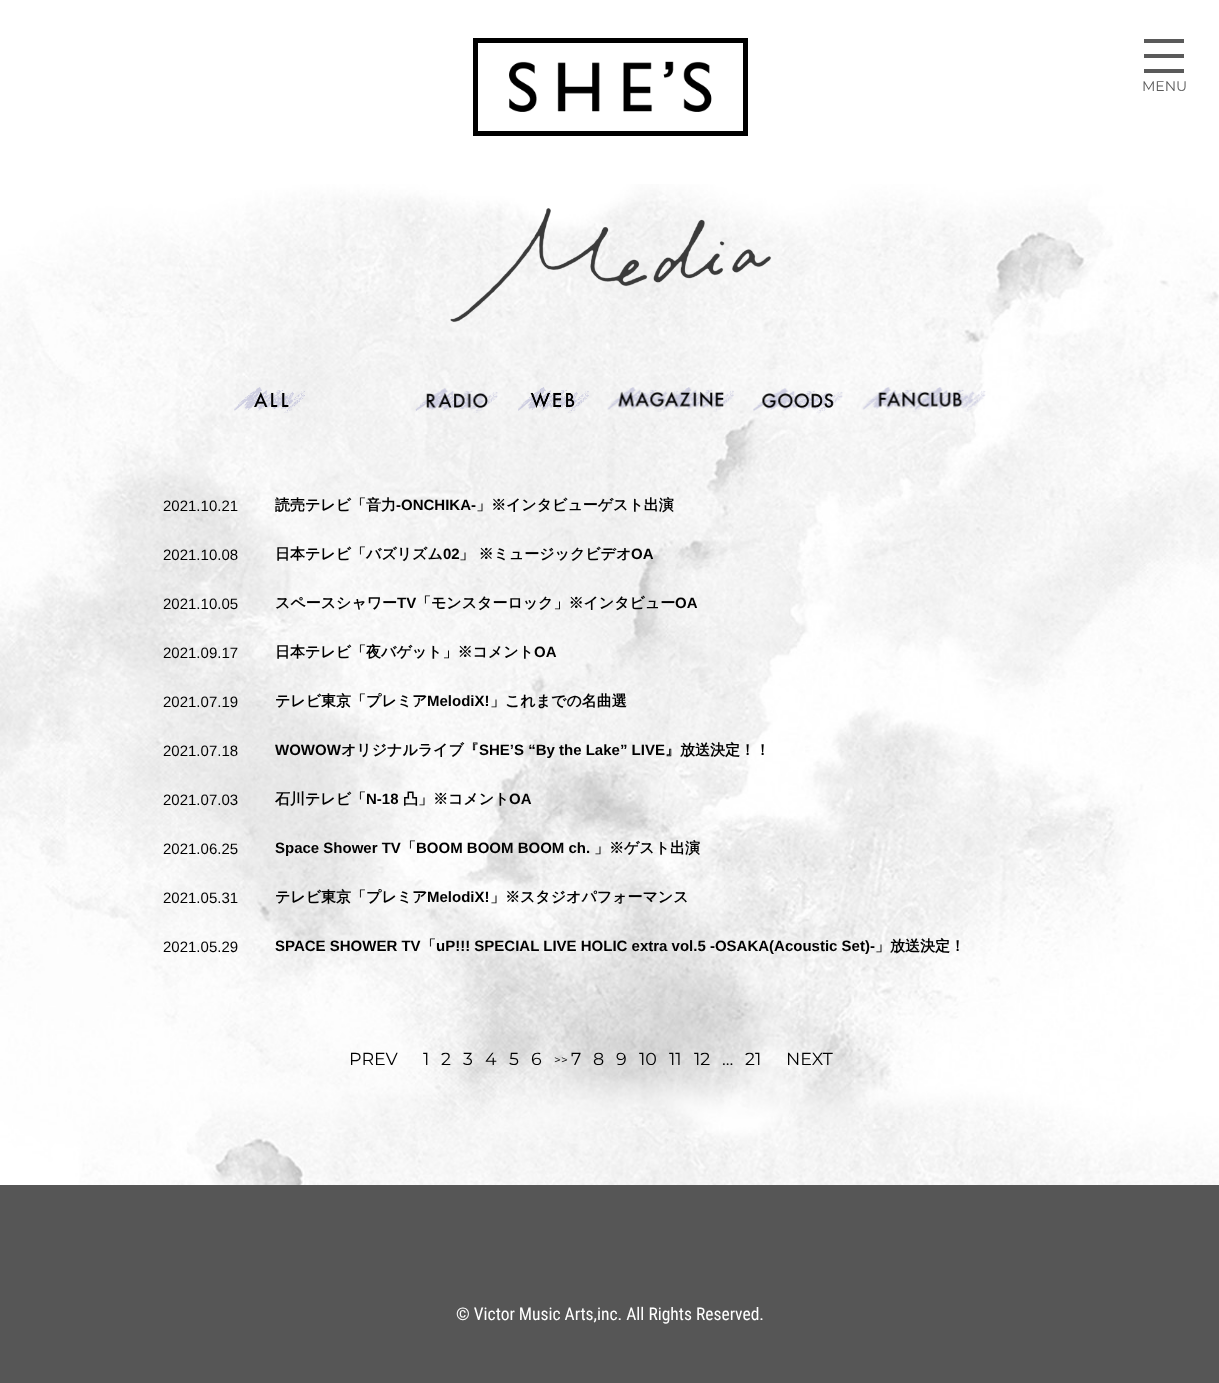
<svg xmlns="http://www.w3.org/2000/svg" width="1219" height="1383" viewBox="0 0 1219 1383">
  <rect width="100%" height="100%" fill="#fff"/>
  <path d="M473 38h275v5H473z" fill="#000"/>
  <path d="M473 131h275v5H473z" fill="#000"/>
  <path d="M473 38h5v98H473z" fill="#000"/>
  <path d="M743 38h5v98H743z" fill="#000"/>
  <image x="509" y="61" width="203" height="51" href="img/1.png"/>
  <path d="M1144 39h40v4H1144z" fill="#5a5a5a"/>
  <path d="M1144 54h40v4H1144z" fill="#5a5a5a"/>
  <path d="M1144 69h40v4H1144z" fill="#5a5a5a"/>
  <image x="0" y="184" width="1219" height="1001" href="img/2.png"/>
  <image x="450" y="208" width="322" height="114" href="img/3.png"/>
  <image x="234" y="387" width="71" height="26" href="img/4.png"/>
  <image x="415" y="388" width="83" height="25" href="img/5.png"/>
  <image x="518" y="387" width="71" height="26" href="img/6.png"/>
  <image x="607" y="387" width="127" height="25" href="img/7.png"/>
  <image x="753" y="388" width="90" height="26" href="img/8.png"/>
  <image x="862" y="387" width="124" height="25" href="img/9.png"/>
  <path d="M0 1185h1219v198H0z" fill="#565656"/>
  <text x="1142" y="91" font-family="Montserrat" font-size="14" font-weight="100" fill="#5a5a5a">MENU</text>
  <text x="163" y="511" font-family="Liberation Sans" font-size="15" fill="#000">2021.10.21</text>
  <text x="275" y="510" font-family="WenQuanYi Zen Hei" font-size="15" font-weight="bold" fill="#000">読売テレビ「音力</text>
  <text x="396" y="510" font-family="Liberation Sans" font-size="15" font-weight="bold" fill="#000">-ONCHIKA-</text>
  <text x="476" y="510" font-family="WenQuanYi Zen Hei" font-size="15" font-weight="bold" fill="#000">」※インタビューゲスト出演</text>
  <text x="163" y="560" font-family="Liberation Sans" font-size="15" fill="#000">2021.10.08</text>
  <text x="275" y="559" font-family="WenQuanYi Zen Hei" font-size="15" font-weight="bold" fill="#000">日本テレビ「バズリズム</text>
  <text x="443" y="559" font-family="Liberation Sans" font-size="15" font-weight="bold" fill="#000">02</text>
  <text x="459" y="559" font-family="WenQuanYi Zen Hei" font-size="15" font-weight="bold" fill="#000">」 ※ミュージックビデオ</text>
  <text x="631" y="559" font-family="Liberation Sans" font-size="15" font-weight="bold" fill="#000">OA</text>
  <text x="163" y="609" font-family="Liberation Sans" font-size="15" fill="#000">2021.10.05</text>
  <text x="275" y="608" font-family="WenQuanYi Zen Hei" font-size="15" font-weight="bold" fill="#000">スペースシャワー</text>
  <text x="397" y="608" font-family="Liberation Sans" font-size="15" font-weight="bold" fill="#000">TV</text>
  <text x="416" y="608" font-family="WenQuanYi Zen Hei" font-size="15" font-weight="bold" fill="#000">「モンスターロック」※インタビュー</text>
  <text x="675" y="608" font-family="Liberation Sans" font-size="15" font-weight="bold" fill="#000">OA</text>
  <text x="163" y="658" font-family="Liberation Sans" font-size="15" fill="#000">2021.09.17</text>
  <text x="275" y="657" font-family="WenQuanYi Zen Hei" font-size="15" font-weight="bold" fill="#000">日本テレビ「夜バゲット」※コメント</text>
  <text x="534" y="657" font-family="Liberation Sans" font-size="15" font-weight="bold" fill="#000">OA</text>
  <text x="163" y="707" font-family="Liberation Sans" font-size="15" fill="#000">2021.07.19</text>
  <text x="275" y="706" font-family="WenQuanYi Zen Hei" font-size="15" font-weight="bold" fill="#000">テレビ東京「プレミア</text>
  <text x="427" y="706" font-family="Liberation Sans" font-size="15" font-weight="bold" fill="#000">MelodiX!</text>
  <text x="490" y="706" font-family="WenQuanYi Zen Hei" font-size="15" font-weight="bold" fill="#000">」これまでの名曲選</text>
  <text x="163" y="756" font-family="Liberation Sans" font-size="15" fill="#000">2021.07.18</text>
  <text x="275" y="755" font-family="Liberation Sans" font-size="15" font-weight="bold" fill="#000">WOWOW</text>
  <text x="341" y="755" font-family="WenQuanYi Zen Hei" font-size="15" font-weight="bold" fill="#000">オリジナルライブ『</text>
  <text x="479" y="755" font-family="Liberation Sans" font-size="15" font-weight="bold" fill="#000">SHE’S “By the Lake” LIVE</text>
  <text x="665" y="755" font-family="WenQuanYi Zen Hei" font-size="15" font-weight="bold" fill="#000">』放送決定！！</text>
  <text x="163" y="805" font-family="Liberation Sans" font-size="15" fill="#000">2021.07.03</text>
  <text x="275" y="804" font-family="WenQuanYi Zen Hei" font-size="15" font-weight="bold" fill="#000">石川テレビ「</text>
  <text x="366" y="804" font-family="Liberation Sans" font-size="15" font-weight="bold" fill="#000">N-18</text>
  <text x="403" y="804" font-family="WenQuanYi Zen Hei" font-size="15" font-weight="bold" fill="#000">凸」※コメント</text>
  <text x="509" y="804" font-family="Liberation Sans" font-size="15" font-weight="bold" fill="#000">OA</text>
  <text x="163" y="854" font-family="Liberation Sans" font-size="15" fill="#000">2021.06.25</text>
  <text x="275" y="853" font-family="Liberation Sans" font-size="15" font-weight="bold" fill="#000">Space Shower TV</text>
  <text x="401" y="853" font-family="WenQuanYi Zen Hei" font-size="15" font-weight="bold" fill="#000">「</text>
  <text x="416" y="853" font-family="Liberation Sans" font-size="15" font-weight="bold" fill="#000">BOOM BOOM BOOM ch.</text>
  <text x="594" y="853" font-family="WenQuanYi Zen Hei" font-size="15" font-weight="bold" fill="#000">」※ゲスト出演</text>
  <text x="163" y="903" font-family="Liberation Sans" font-size="15" fill="#000">2021.05.31</text>
  <text x="275" y="902" font-family="WenQuanYi Zen Hei" font-size="15" font-weight="bold" fill="#000">テレビ東京「プレミア</text>
  <text x="427" y="902" font-family="Liberation Sans" font-size="15" font-weight="bold" fill="#000">MelodiX!</text>
  <text x="490" y="902" font-family="WenQuanYi Zen Hei" font-size="15" font-weight="bold" fill="#000">」※スタジオパフォーマンス</text>
  <text x="163" y="952" font-family="Liberation Sans" font-size="15" fill="#000">2021.05.29</text>
  <text x="275" y="951" font-family="Liberation Sans" font-size="15" font-weight="bold" fill="#000">SPACE SHOWER TV</text>
  <text x="421" y="951" font-family="WenQuanYi Zen Hei" font-size="15" font-weight="bold" fill="#000">「</text>
  <text x="436" y="951" font-family="Liberation Sans" font-size="15" font-weight="bold" fill="#000">uP!!! SPECIAL LIVE HOLIC extra vol.5 -OSAKA(Acoustic Set)-</text>
  <text x="875" y="951" font-family="WenQuanYi Zen Hei" font-size="15" font-weight="bold" fill="#000">」放送決定！</text>
  <g font-family="Montserrat" font-size="17.5" font-weight="100" fill="#000">
    <text x="349" y="1065">PREV</text>
    <text x="423" y="1065">1</text>
    <text x="441" y="1065">2</text>
    <text x="463" y="1065">3</text>
    <text x="485" y="1065">4</text>
    <text x="509" y="1065">5</text>
    <text x="531" y="1065">6</text>
  </g>
  <text x="554" y="1064" font-family="Montserrat" font-size="12" font-weight="100" fill="#000">&gt;&gt;</text>
  <g font-family="Montserrat" font-size="17.5" font-weight="100" fill="#000">
    <text x="571" y="1065">7</text>
    <text x="593" y="1065">8</text>
    <text x="616" y="1065">9</text>
    <text x="639" y="1065">10</text>
    <text x="669" y="1065">11</text>
    <text x="694" y="1065">12</text>
    <text x="722" y="1065">…</text>
    <text x="745" y="1065">21</text>
    <text x="786" y="1065">NEXT</text>
  </g>
  <text x="456" y="1320" font-family="Roboto Condensed" font-size="17.5" fill="#fff">© Victor Music Arts,inc. All Rights Reserved.</text>
</svg>
